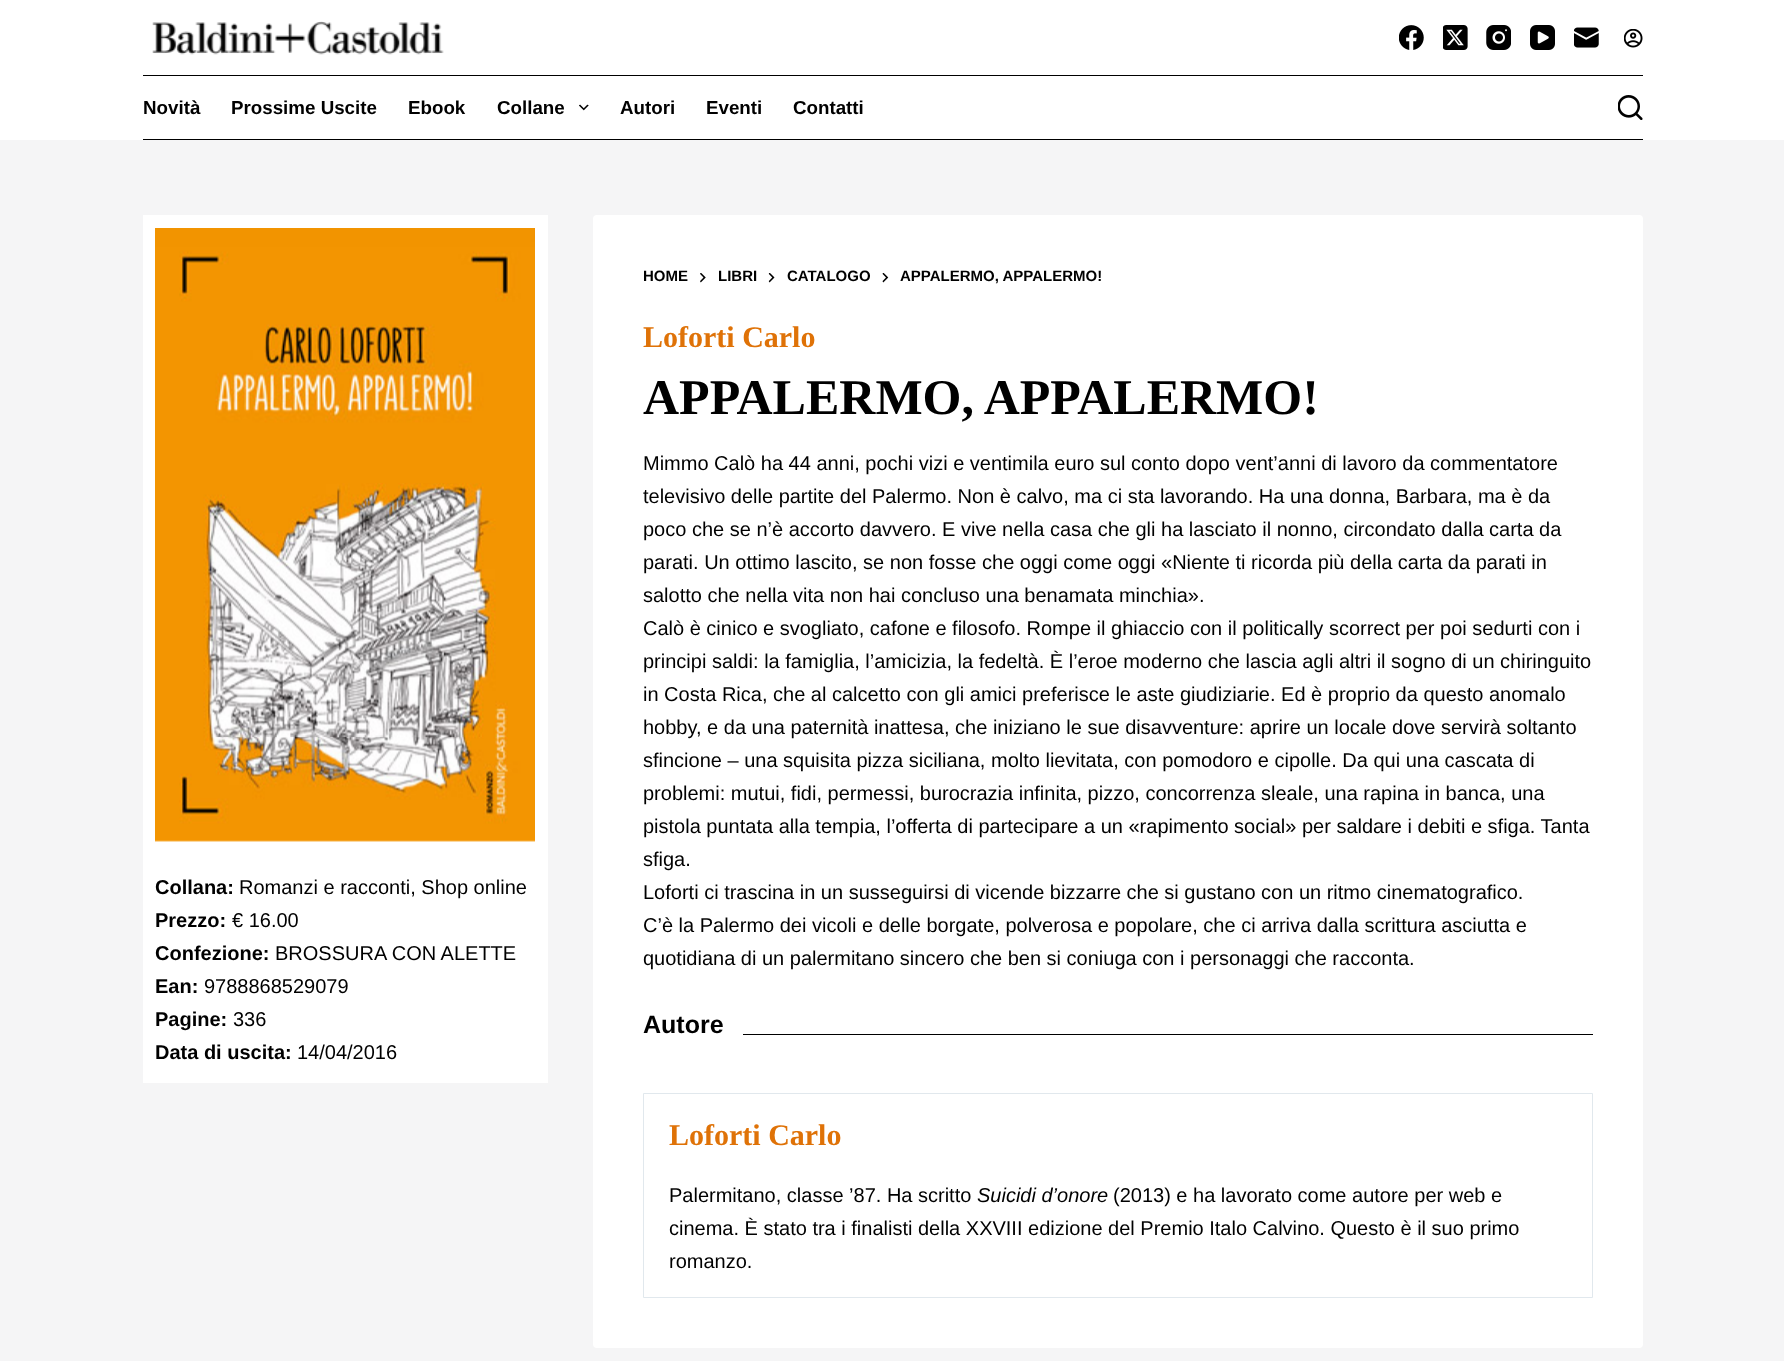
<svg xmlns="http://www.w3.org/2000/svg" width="1784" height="1361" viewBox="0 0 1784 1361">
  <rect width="100%" height="100%" fill="#f5f5f6"/>
  <path d="M0 0h1784v140H0z" fill="#fff"/>
  <image x="152" y="21" width="292" height="34" href="img/1.png"/>
  <image x="1399" y="25" width="25" height="25" href="img/2.png"/>
  <image x="1443" y="25" width="25" height="25" href="img/3.png"/>
  <image x="1486" y="25" width="25" height="25" href="img/4.png"/>
  <image x="1530" y="25" width="25" height="25" href="img/5.png"/>
  <image x="1574" y="27" width="25" height="21" href="img/6.png"/>
  <image x="1624" y="29" width="19" height="19" href="img/7.png"/>
  <path d="M143 75h1500v1H143z" fill="#000"/>
  <path d="M143 139h1500v1H143z" fill="#000"/>
  <image x="579" y="104" width="10" height="7" href="img/8.png"/>
  <image x="1618" y="95" width="25" height="25" href="img/9.png"/>
  <path d="M143 215h405v868H143z" fill="#fff"/>
  <image x="155" y="228" width="380" height="614" href="img/10.png"/>
  <rect x="593" y="215" width="1050" height="1133" rx="4" fill="#fff"/>
  <image x="700" y="273" width="6" height="10" href="img/11.png"/>
  <image x="768" y="273" width="7" height="10" href="img/12.png"/>
  <image x="882" y="273" width="7" height="10" href="img/13.png"/>
  <path d="M743 1034h850v1H743z" fill="#000"/>
  <path d="M643.5 1093.5h949v204H643.5z" fill="none" stroke="#e1e8ed"/>
  <g font-family="Liberation Sans" font-size="18.75" font-weight="bold" fill="#000">
    <text x="143" y="114">Novità</text>
    <text x="231" y="114">Prossime Uscite</text>
    <text x="408" y="114">Ebook</text>
    <text x="497" y="114">Collane</text>
    <text x="620" y="114">Autori</text>
    <text x="706" y="114">Eventi</text>
    <text x="793" y="114">Contatti</text>
  </g>
  <text x="155" y="894" font-family="Liberation Sans" font-size="20" font-weight="bold" fill="#000">Collana:</text>
  <text x="239" y="894" font-family="Liberation Sans" font-size="20" fill="#000">Romanzi e racconti, Shop online</text>
  <text x="155" y="927" font-family="Liberation Sans" font-size="20" font-weight="bold" fill="#000">Prezzo:</text>
  <text x="232" y="927" font-family="Liberation Sans" font-size="20" fill="#000">€ 16.00</text>
  <text x="155" y="960" font-family="Liberation Sans" font-size="20" font-weight="bold" fill="#000">Confezione:</text>
  <text x="275" y="960" font-family="Liberation Sans" font-size="20" fill="#000">BROSSURA CON ALETTE</text>
  <text x="155" y="993" font-family="Liberation Sans" font-size="20" font-weight="bold" fill="#000">Ean:</text>
  <text x="204" y="993" font-family="Liberation Sans" font-size="20" fill="#000">9788868529079</text>
  <text x="155" y="1026" font-family="Liberation Sans" font-size="20" font-weight="bold" fill="#000">Pagine:</text>
  <text x="233" y="1026" font-family="Liberation Sans" font-size="20" fill="#000">336</text>
  <text x="155" y="1059" font-family="Liberation Sans" font-size="20" font-weight="bold" fill="#000">Data di uscita:</text>
  <text x="297" y="1059" font-family="Liberation Sans" font-size="20" fill="#000">14/04/2016</text>
  <g font-family="Liberation Sans" font-size="15" font-weight="bold" fill="#000">
    <text x="643" y="281">HOME</text>
    <text x="718" y="281">LIBRI</text>
    <text x="787" y="281">CATALOGO</text>
    <text x="900" y="281">APPALERMO, APPALERMO!</text>
  </g>
  <text x="643" y="347" font-family="Liberation Serif" font-size="30" font-weight="bold" fill="#df7207">Loforti Carlo</text>
  <text x="643" y="414" font-family="Liberation Serif" font-size="50" font-weight="bold" fill="#000">APPALERMO, APPALERMO!</text>
  <g font-family="Liberation Sans" font-size="20" fill="#000">
    <text x="643" y="470">Mimmo Calò ha 44 anni, pochi vizi e ventimila euro sul conto dopo vent’anni di lavoro da commentatore</text>
    <text x="643" y="503">televisivo delle partite del Palermo. Non è calvo, ma ci sta lavorando. Ha una donna, Barbara, ma è da</text>
    <text x="643" y="536">poco che se n’è accorto davvero. E vive nella casa che gli ha lasciato il nonno, circondato dalla carta da</text>
    <text x="643" y="569">parati. Un ottimo lascito, se non fosse che oggi come oggi «Niente ti ricorda più della carta da parati in</text>
    <text x="643" y="602">salotto che nella vita non hai concluso una benamata minchia».</text>
    <text x="643" y="635">Calò è cinico e svogliato, cafone e filosofo. Rompe il ghiaccio con il politically scorrect per poi sedurti con i</text>
    <text x="643" y="668">principi saldi: la famiglia, l’amicizia, la fedeltà. È l’eroe moderno che lascia agli altri il sogno di un chiringuito</text>
    <text x="643" y="701">in Costa Rica, che al calcetto con gli amici preferisce le aste giudiziarie. Ed è proprio da questo anomalo</text>
    <text x="643" y="734">hobby, e da una paternità inattesa, che iniziano le sue disavventure: aprire un locale dove servirà soltanto</text>
    <text x="643" y="767">sfincione – una squisita pizza siciliana, molto lievitata, con pomodoro e cipolle. Da qui una cascata di</text>
    <text x="643" y="800">problemi: mutui, fidi, permessi, burocrazia infinita, pizzo, concorrenza sleale, una rapina in banca, una</text>
    <text x="643" y="833">pistola puntata alla tempia, l’offerta di partecipare a un «rapimento social» per saldare i debiti e sfiga. Tanta</text>
    <text x="643" y="866">sfiga.</text>
    <text x="643" y="899">Loforti ci trascina in un susseguirsi di vicende bizzarre che si gustano con un ritmo cinematografico.</text>
    <text x="643" y="932">C’è la Palermo dei vicoli e delle borgate, polverosa e popolare, che ci arriva dalla scrittura asciutta e</text>
    <text x="643" y="965">quotidiana di un palermitano sincero che ben si coniuga con i personaggi che racconta.</text>
  </g>
  <text x="643" y="1033" font-family="Liberation Sans" font-size="25" font-weight="bold" fill="#000">Autore</text>
  <text x="669" y="1145" font-family="Liberation Serif" font-size="30" font-weight="bold" fill="#df7207">Loforti Carlo</text>
  <text x="669" y="1202" font-family="Liberation Sans" font-size="20" fill="#000">Palermitano, classe ’87. Ha scritto</text>
  <text x="977" y="1202" font-family="Liberation Sans" font-size="20" font-style="italic" fill="#000">Suicidi d’onore</text>
  <g font-family="Liberation Sans" font-size="20" fill="#000">
    <text x="1113" y="1202">(2013) e ha lavorato come autore per web e</text>
    <text x="669" y="1235">cinema. È stato tra i finalisti della XXVIII edizione del Premio Italo Calvino. Questo è il suo primo</text>
    <text x="669" y="1268">romanzo.</text>
  </g>
</svg>
